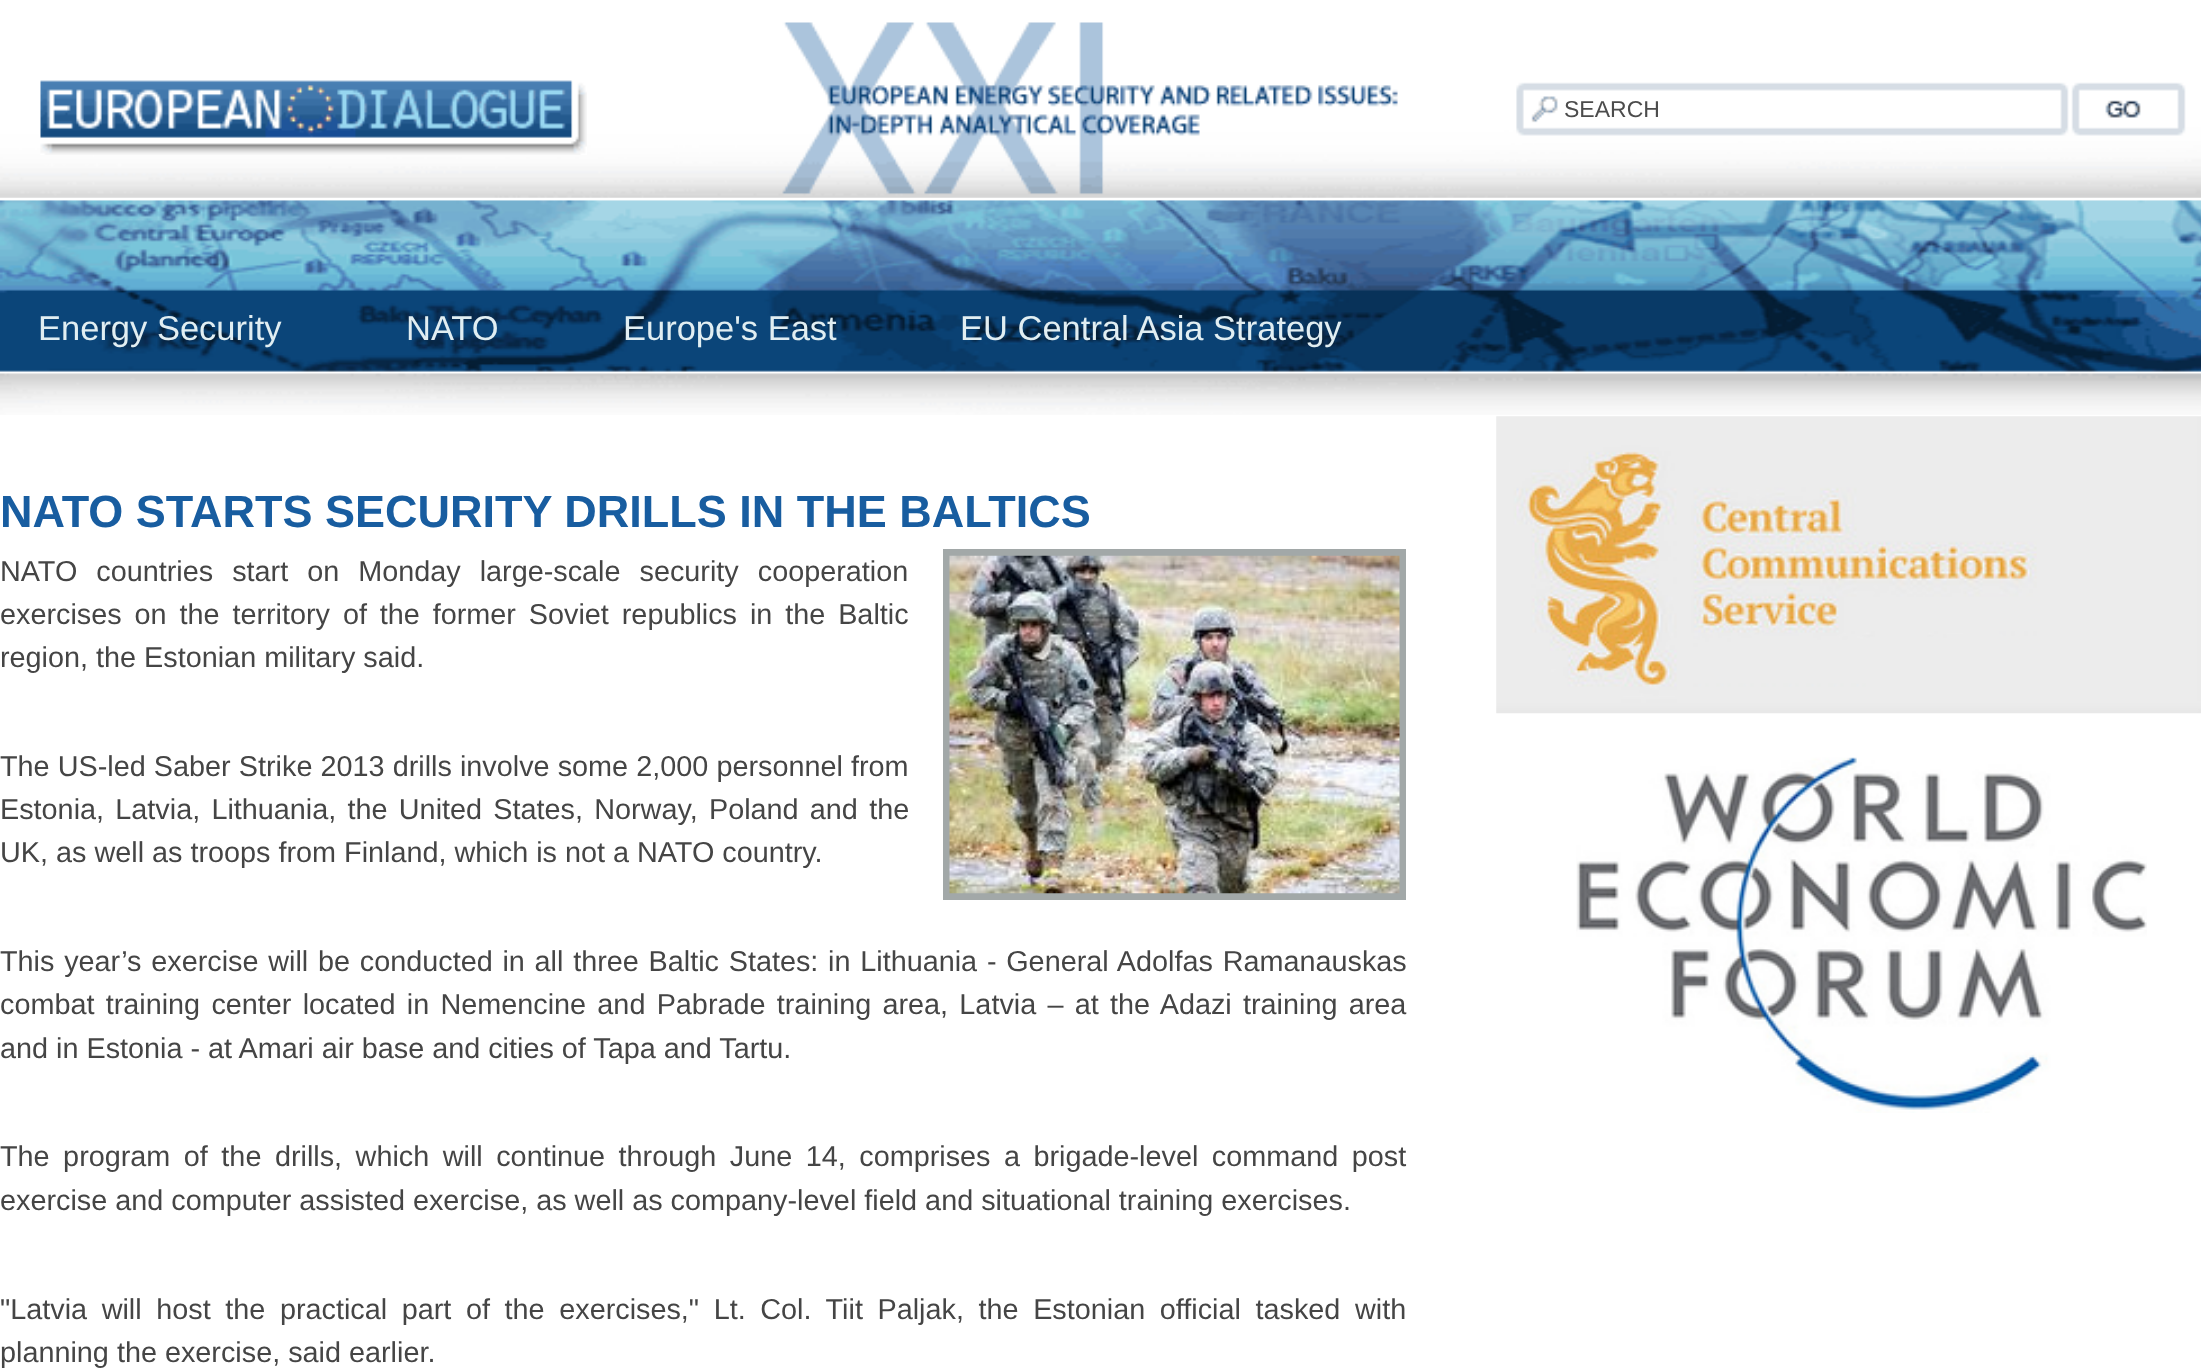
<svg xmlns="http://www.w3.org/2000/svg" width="2201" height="1369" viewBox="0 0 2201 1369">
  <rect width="100%" height="100%" fill="#fff"/>
  <image x="0" y="22" width="2201" height="393" href="img/1.png"/>
  <path d="M0 198h2201v2H0z" fill="#fff"/>
  <image x="40" y="80" width="547" height="75" href="img/2.png"/>
  <path d="M946.5 552.5h456v344H946.5z" fill="none" stroke="#a2a8a8" stroke-width="7"/>
  <image x="949" y="555" width="451" height="339" href="img/3.png"/>
  <image x="1496" y="416" width="705" height="298" href="img/4.png"/>
  <image x="1576" y="757" width="571" height="356" href="img/5.png"/>
  <text x="1564" y="117" font-family="Liberation Sans" font-size="23" fill="#4c4c4c">SEARCH</text>
  <g font-family="Liberation Sans" font-size="34.5" fill="#e1eef2">
    <text x="38" y="340">Energy Security</text>
    <text x="406" y="340">NATO</text>
    <text x="623" y="340">Europe's East</text>
    <text x="960" y="340">EU Central Asia Strategy</text>
  </g>
  <text x="0" y="527" font-family="Liberation Sans" font-size="45" font-weight="bold" fill="#185da0">NATO STARTS SECURITY DRILLS IN THE BALTICS</text>
  <g font-family="Liberation Sans" font-size="28.8" fill="#454545">
    <text x="0" y="581" word-spacing="11">NATO countries start on Monday large-scale security cooperation</text>
    <text x="0" y="624" word-spacing="4.9">exercises on the territory of the former Soviet republics in the Baltic</text>
    <text x="0" y="667">region, the Estonian military said.</text>
    <text x="0" y="776" word-spacing="0.1">The US-led Saber Strike 2013 drills involve some 2,000 personnel from</text>
    <text x="0" y="819" word-spacing="3.25">Estonia, Latvia, Lithuania, the United States, Norway, Poland and the</text>
    <text x="0" y="862">UK, as well as troops from Finland, which is not a NATO country.</text>
    <text x="0" y="971" word-spacing="1.75">This year’s exercise will be conducted in all three Baltic States: in Lithuania - General Adolfas Ramanauskas</text>
    <text x="0" y="1014" word-spacing="3.25">combat training center located in Nemencine and Pabrade training area, Latvia – at the Adazi training area</text>
    <text x="0" y="1058">and in Estonia - at Amari air base and cities of Tapa and Tartu.</text>
    <text x="0" y="1166" word-spacing="5.5">The program of the drills, which will continue through June 14, comprises a brigade-level command post</text>
    <text x="0" y="1210">exercise and computer assisted exercise, as well as company-level field and situational training exercises.</text>
    <text x="0" y="1319" word-spacing="6.6">"Latvia will host the practical part of the exercises," Lt. Col. Tiit Paljak, the Estonian official tasked with</text>
    <text x="0" y="1362">planning the exercise, said earlier.</text>
  </g>
</svg>
